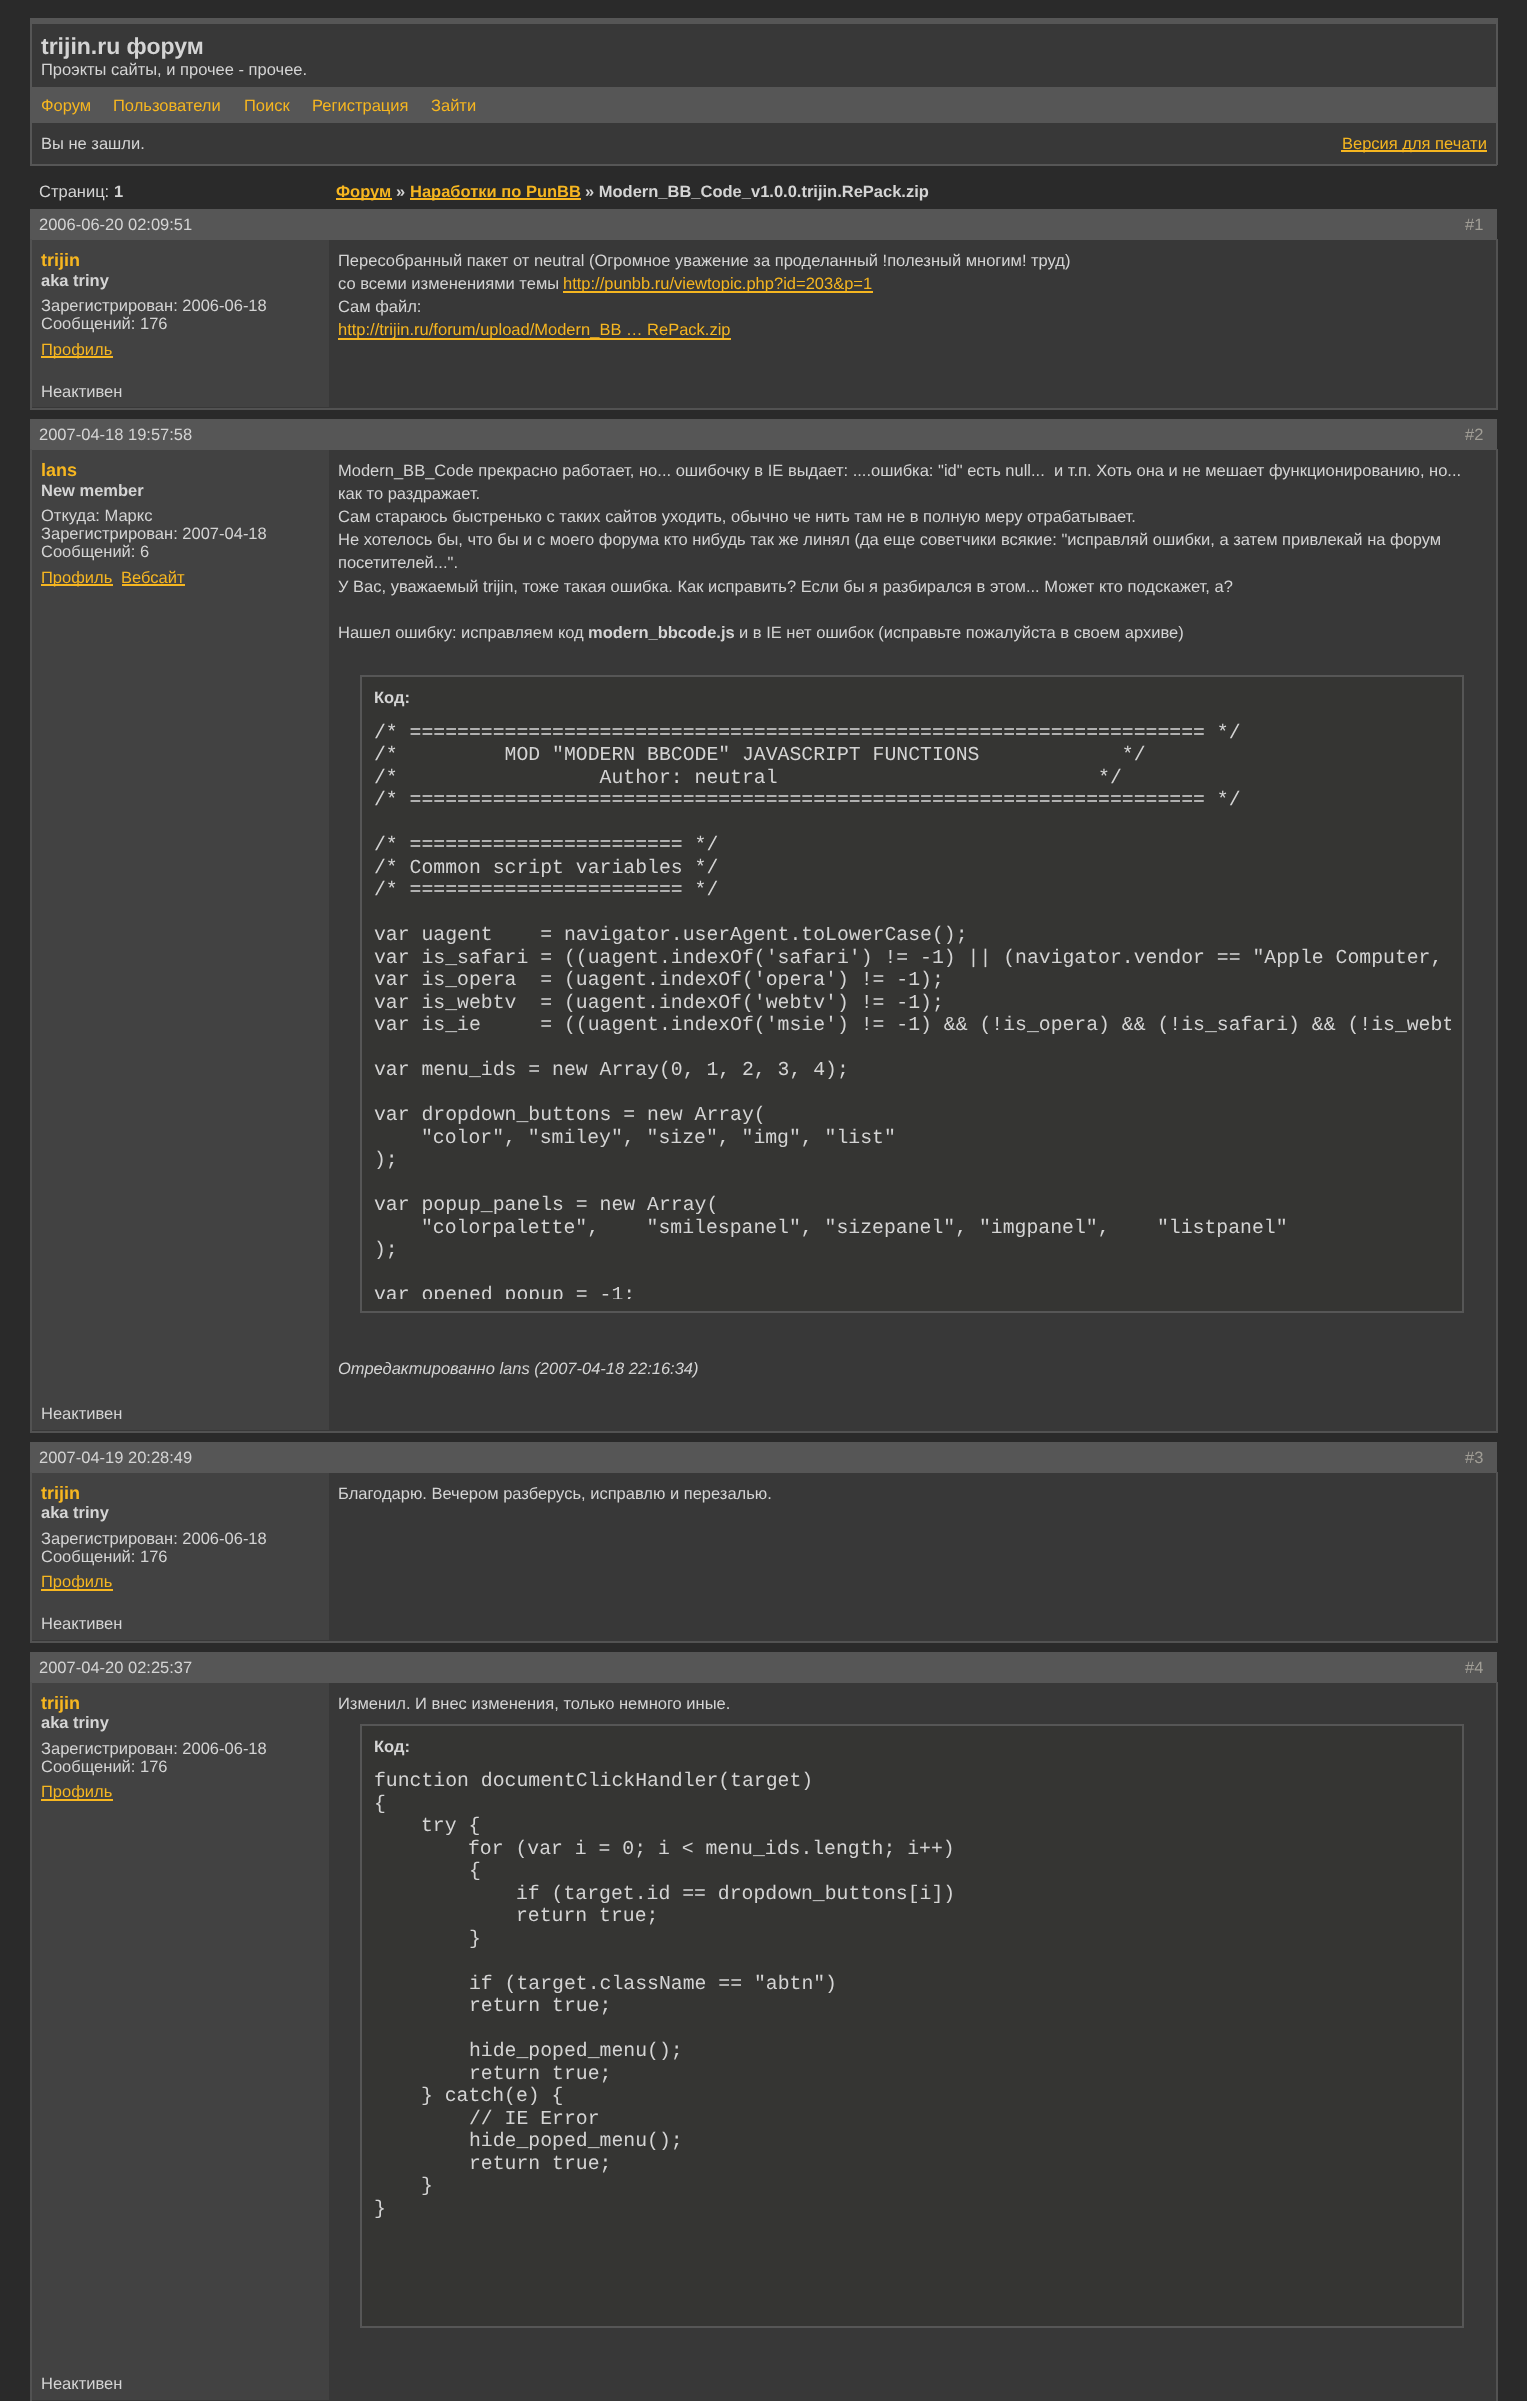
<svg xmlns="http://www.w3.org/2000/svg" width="1527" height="2401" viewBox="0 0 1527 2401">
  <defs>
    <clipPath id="clip1"><path d="M374 722h1077v577H374z"/></clipPath>
  </defs>
  <rect width="100%" height="100%" fill="#2a2a2a"/>
  <path d="M32 24h1464v140H32z" fill="#383838"/>
  <path d="M30 18h1467v6H30z" fill="#565656"/>
  <path d="M1496 18h2v147H1496z" fill="#565656"/>
  <path d="M30 164h1467v2H30z" fill="#565656"/>
  <path d="M30 18h2v147H30z" fill="#565656"/>
  <path d="M32 87h1464v36H32z" fill="#565656"/>
  <path d="M1341 150h146v2H1341z" fill="#f6b620"/>
  <path d="M336 198h56v2H336z" fill="#f6b620"/>
  <path d="M410 198h171v2H410z" fill="#f6b620"/>
  <path d="M32 351h1464v57H32z" fill="#383838"/>
  <path d="M30 209h1467v31H30z" fill="#565656"/>
  <path d="M1496 239h2v171H1496z" fill="#525252"/>
  <path d="M30 408h1467v2H30z" fill="#525252"/>
  <path d="M30 239h2v171H30z" fill="#525252"/>
  <path d="M32 240h297v167H32z" fill="#424242"/>
  <path d="M41 356h72v2H41z" fill="#f6b620"/>
  <path d="M329 240h1167v111H329z" fill="#383838"/>
  <path d="M563 291h310v2H563z" fill="#f6b620"/>
  <path d="M338 338h393v2H338z" fill="#f6b620"/>
  <path d="M32 1430h1464v1H32z" fill="#383838"/>
  <path d="M30 419h1467v31H30z" fill="#565656"/>
  <path d="M1496 449h2v984H1496z" fill="#525252"/>
  <path d="M30 1431h1467v2H30z" fill="#525252"/>
  <path d="M30 449h2v984H30z" fill="#525252"/>
  <path d="M32 450h297v980H32z" fill="#424242"/>
  <path d="M41 584h72v2H41z" fill="#f6b620"/>
  <path d="M122 584h63v2H122z" fill="#f6b620"/>
  <path d="M329 450h1167v980H329z" fill="#383838"/>
  <path d="M361 676h1102v636H361z" fill="#353533" stroke="#565656" stroke-width="2"/>
  <path d="M32 1515h1464v126H32z" fill="#383838"/>
  <path d="M30 1442h1467v31H30z" fill="#565656"/>
  <path d="M1496 1472h2v171H1496z" fill="#525252"/>
  <path d="M30 1641h1467v2H30z" fill="#525252"/>
  <path d="M30 1472h2v171H30z" fill="#525252"/>
  <path d="M32 1473h297v167H32z" fill="#424242"/>
  <path d="M41 1589h72v2H41z" fill="#f6b620"/>
  <path d="M329 1473h1167v42H329z" fill="#383838"/>
  <path d="M32 2400h1464v1H32z" fill="#383838"/>
  <path d="M30 1652h1467v31H30z" fill="#565656"/>
  <path d="M1496 1682h2v719H1496z" fill="#525252"/>
  <path d="M30 1682h2v719H30z" fill="#525252"/>
  <path d="M32 1683h297v717H32z" fill="#424242"/>
  <path d="M41 1799h72v2H41z" fill="#f6b620"/>
  <path d="M329 1683h1167v717H329z" fill="#383838"/>
  <path d="M361 1725h1102v602H361z" fill="#353533" stroke="#565656" stroke-width="2"/>
  <text x="41" y="54" font-family="Liberation Sans" font-size="23" font-weight="bold" fill="#d4d4d4">trijin.ru форум</text>
  <text x="41" y="75" font-family="Liberation Sans" font-size="16.5" fill="#d4d4d4">Проэкты сайты, и прочее - прочее.</text>
  <g font-family="Liberation Sans" font-size="16.5" fill="#f6b620">
    <text x="41" y="111">Форум</text>
    <text x="113" y="111">Пользователи</text>
    <text x="244" y="111">Поиск</text>
    <text x="312" y="111">Регистрация</text>
    <text x="431" y="111">Зайти</text>
  </g>
  <text x="41" y="149" font-family="Liberation Sans" font-size="16.5" fill="#d4d4d4">Вы не зашли.</text>
  <text x="1342" y="149" font-family="Liberation Sans" font-size="16.5" fill="#f6b620">Версия для печати</text>
  <text x="39" y="197" font-family="Liberation Sans" font-size="16.5" fill="#d4d4d4">Страниц:</text>
  <text x="114" y="197" font-family="Liberation Sans" font-size="16.5" font-weight="bold" fill="#d4d4d4">1</text>
  <text x="336" y="197" font-family="Liberation Sans" font-size="16.5" font-weight="bold" fill="#f6b620">Форум</text>
  <text x="396" y="197" font-family="Liberation Sans" font-size="16.5" font-weight="bold" fill="#d4d4d4">»</text>
  <text x="410" y="197" font-family="Liberation Sans" font-size="16.5" font-weight="bold" fill="#f6b620">Наработки по PunBB</text>
  <text x="585" y="197" font-family="Liberation Sans" font-size="16.5" font-weight="bold" fill="#d4d4d4">» Modern_BB_Code_v1.0.0.trijin.RePack.zip</text>
  <text x="39" y="230" font-family="Liberation Sans" font-size="16.5" fill="#d4d4d4">2006-06-20 02:09:51</text>
  <text x="1465" y="230" font-family="Liberation Sans" font-size="16.5" fill="#a19e96">#1</text>
  <text x="41" y="266" font-family="Liberation Sans" font-size="18" font-weight="bold" fill="#f6b620">trijin</text>
  <text x="41" y="286" font-family="Liberation Sans" font-size="16.5" font-weight="bold" fill="#d4d4d4">aka triny</text>
  <g font-family="Liberation Sans" font-size="16.5" fill="#d4d4d4">
    <text x="41" y="311">Зарегистрирован: 2006-06-18</text>
    <text x="41" y="329">Сообщений: 176</text>
  </g>
  <text x="41" y="355" font-family="Liberation Sans" font-size="16.5" fill="#f6b620">Профиль</text>
  <g font-family="Liberation Sans" font-size="16.5" fill="#d4d4d4">
    <text x="338" y="266">Пересобранный пакет от neutral (Огромное уважение за проделанный !полезный многим! труд)</text>
    <text x="338" y="289">со всеми изменениями темы</text>
  </g>
  <text x="563" y="289" font-family="Liberation Sans" font-size="16.5" fill="#f6b620">http://punbb.ru/viewtopic.php?id=203&amp;p=1</text>
  <text x="338" y="312" font-family="Liberation Sans" font-size="16.5" fill="#d4d4d4">Сам файл:</text>
  <text x="338" y="335" font-family="Liberation Sans" font-size="16.5" fill="#f6b620">http://trijin.ru/forum/upload/Modern_BB … RePack.zip</text>
  <g font-family="Liberation Sans" font-size="16.5" fill="#d4d4d4">
    <text x="41" y="397">Неактивен</text>
    <text x="39" y="440">2007-04-18 19:57:58</text>
  </g>
  <text x="1465" y="440" font-family="Liberation Sans" font-size="16.5" fill="#a19e96">#2</text>
  <text x="41" y="476" font-family="Liberation Sans" font-size="18" font-weight="bold" fill="#f6b620">lans</text>
  <text x="41" y="496" font-family="Liberation Sans" font-size="16.5" font-weight="bold" fill="#d4d4d4">New member</text>
  <g font-family="Liberation Sans" font-size="16.5" fill="#d4d4d4">
    <text x="41" y="521">Откуда: Маркс</text>
    <text x="41" y="539">Зарегистрирован: 2007-04-18</text>
    <text x="41" y="557">Сообщений: 6</text>
  </g>
  <g font-family="Liberation Sans" font-size="16.5" fill="#f6b620">
    <text x="41" y="583">Профиль</text>
    <text x="121" y="583">Вебсайт</text>
  </g>
  <g font-family="Liberation Sans" font-size="16.5" fill="#d4d4d4">
    <text x="338" y="476" xml:space="preserve">Modern_BB_Code прекрасно работает, но... ошибочку в IE выдает: ....ошибка: "id" есть null...  и т.п. Хоть она и не мешает функционированию, но...</text>
    <text x="338" y="499">как то раздражает.</text>
    <text x="338" y="522">Сам стараюсь быстренько с таких сайтов уходить, обычно че нить там не в полную меру отрабатывает.</text>
    <text x="338" y="545">Не хотелось бы, что бы и с моего форума кто нибудь так же линял (да еще советчики всякие: "исправляй ошибки, а затем привлекай на форум</text>
    <text x="338" y="568">посетителей...".</text>
    <text x="338" y="592">У Вас, уважаемый trijin, тоже такая ошибка. Как исправить? Если бы я разбирался в этом... Может кто подскажет, а?</text>
    <text x="338" y="638">Нашел ошибку: исправляем код</text>
  </g>
  <text x="588" y="638" font-family="Liberation Sans" font-size="16.5" font-weight="bold" fill="#d4d4d4">modern_bbcode.js</text>
  <text x="739" y="638" font-family="Liberation Sans" font-size="16.5" fill="#d4d4d4">и в IE нет ошибок (исправьте пожалуйста в своем архиве)</text>
  <text x="374" y="703" font-family="Liberation Sans" font-size="16.5" font-weight="bold" fill="#d4d4d4">Код:</text>
  <g font-family="Liberation Mono" font-size="19.8" fill="#d4d4d4">
    <text x="374" y="738">/* =================================================================== */</text>
    <text x="374" y="760" xml:space="preserve">/*         MOD "MODERN BBCODE" JAVASCRIPT FUNCTIONS            */</text>
    <text x="374" y="783" xml:space="preserve">/*                 Author: neutral                           */</text>
    <text x="374" y="805">/* =================================================================== */</text>
    <text x="374" y="850">/* ======================= */</text>
    <text x="374" y="873">/* Common script variables */</text>
    <text x="374" y="895">/* ======================= */</text>
    <text x="374" y="940" xml:space="preserve">var uagent    = navigator.userAgent.toLowerCase();</text>
    <text x="374" y="963">var is_safari = ((uagent.indexOf('safari') != -1) || (navigator.vendor == "Apple Computer,</text>
    <text x="374" y="985" xml:space="preserve">var is_opera  = (uagent.indexOf('opera') != -1);</text>
    <text x="374" y="1008" xml:space="preserve">var is_webtv  = (uagent.indexOf('webtv') != -1);</text>
  </g>
  <g clip-path="url(#clip1)">
    <text x="374" y="1030" font-family="Liberation Mono" font-size="19.8" fill="#d4d4d4" xml:space="preserve">var is_ie     = ((uagent.indexOf('msie') != -1) &amp;&amp; (!is_opera) &amp;&amp; (!is_safari) &amp;&amp; (!is_webt</text>
  </g>
  <g font-family="Liberation Mono" font-size="19.8" fill="#d4d4d4">
    <text x="374" y="1075">var menu_ids = new Array(0, 1, 2, 3, 4);</text>
    <text x="374" y="1120">var dropdown_buttons = new Array(</text>
    <text x="421" y="1143">"color", "smiley", "size", "img", "list"</text>
    <text x="374" y="1165">);</text>
    <text x="374" y="1210">var popup_panels = new Array(</text>
    <text x="421" y="1233" xml:space="preserve">"colorpalette",    "smilespanel", "sizepanel", "imgpanel",    "listpanel"</text>
    <text x="374" y="1255">);</text>
  </g>
  <g clip-path="url(#clip1)">
    <text x="374" y="1300" font-family="Liberation Mono" font-size="19.8" fill="#d4d4d4">var opened_popup = -1;</text>
  </g>
  <text x="338" y="1374" font-family="Liberation Sans" font-size="16.5" font-style="italic" fill="#d4d4d4">Отредактированно lans (2007-04-18 22:16:34)</text>
  <g font-family="Liberation Sans" font-size="16.5" fill="#d4d4d4">
    <text x="41" y="1419">Неактивен</text>
    <text x="39" y="1463">2007-04-19 20:28:49</text>
  </g>
  <text x="1465" y="1463" font-family="Liberation Sans" font-size="16.5" fill="#a19e96">#3</text>
  <text x="41" y="1499" font-family="Liberation Sans" font-size="18" font-weight="bold" fill="#f6b620">trijin</text>
  <text x="41" y="1518" font-family="Liberation Sans" font-size="16.5" font-weight="bold" fill="#d4d4d4">aka triny</text>
  <g font-family="Liberation Sans" font-size="16.5" fill="#d4d4d4">
    <text x="41" y="1544">Зарегистрирован: 2006-06-18</text>
    <text x="41" y="1562">Сообщений: 176</text>
  </g>
  <text x="41" y="1587" font-family="Liberation Sans" font-size="16.5" fill="#f6b620">Профиль</text>
  <g font-family="Liberation Sans" font-size="16.5" fill="#d4d4d4">
    <text x="338" y="1499">Благодарю. Вечером разберусь, исправлю и перезалью.</text>
    <text x="41" y="1629">Неактивен</text>
    <text x="39" y="1673">2007-04-20 02:25:37</text>
  </g>
  <text x="1465" y="1673" font-family="Liberation Sans" font-size="16.5" fill="#a19e96">#4</text>
  <text x="41" y="1709" font-family="Liberation Sans" font-size="18" font-weight="bold" fill="#f6b620">trijin</text>
  <text x="41" y="1728" font-family="Liberation Sans" font-size="16.5" font-weight="bold" fill="#d4d4d4">aka triny</text>
  <g font-family="Liberation Sans" font-size="16.5" fill="#d4d4d4">
    <text x="41" y="1754">Зарегистрирован: 2006-06-18</text>
    <text x="41" y="1772">Сообщений: 176</text>
  </g>
  <text x="41" y="1797" font-family="Liberation Sans" font-size="16.5" fill="#f6b620">Профиль</text>
  <text x="338" y="1709" font-family="Liberation Sans" font-size="16.5" fill="#d4d4d4">Изменил. И внес изменения, только немного иные.</text>
  <text x="374" y="1752" font-family="Liberation Sans" font-size="16.5" font-weight="bold" fill="#d4d4d4">Код:</text>
  <g font-family="Liberation Mono" font-size="19.8" fill="#d4d4d4">
    <text x="374" y="1786">function documentClickHandler(target)</text>
    <text x="374" y="1809">{</text>
    <text x="421" y="1831">try {</text>
    <text x="468" y="1854">for (var i = 0; i &lt; menu_ids.length; i++)</text>
    <text x="469" y="1876">{</text>
    <text x="516" y="1899">if (target.id == dropdown_buttons[i])</text>
    <text x="516" y="1921">return true;</text>
    <text x="469" y="1944">}</text>
    <text x="469" y="1989">if (target.className == "abtn")</text>
    <text x="469" y="2011">return true;</text>
    <text x="469" y="2056">hide_poped_menu();</text>
    <text x="469" y="2079">return true;</text>
    <text x="421" y="2101">} catch(e) {</text>
    <text x="469" y="2124">// IE Error</text>
    <text x="469" y="2146">hide_poped_menu();</text>
    <text x="469" y="2169">return true;</text>
    <text x="421" y="2191">}</text>
    <text x="374" y="2214">}</text>
  </g>
  <text x="41" y="2389" font-family="Liberation Sans" font-size="16.5" fill="#d4d4d4">Неактивен</text>
</svg>
